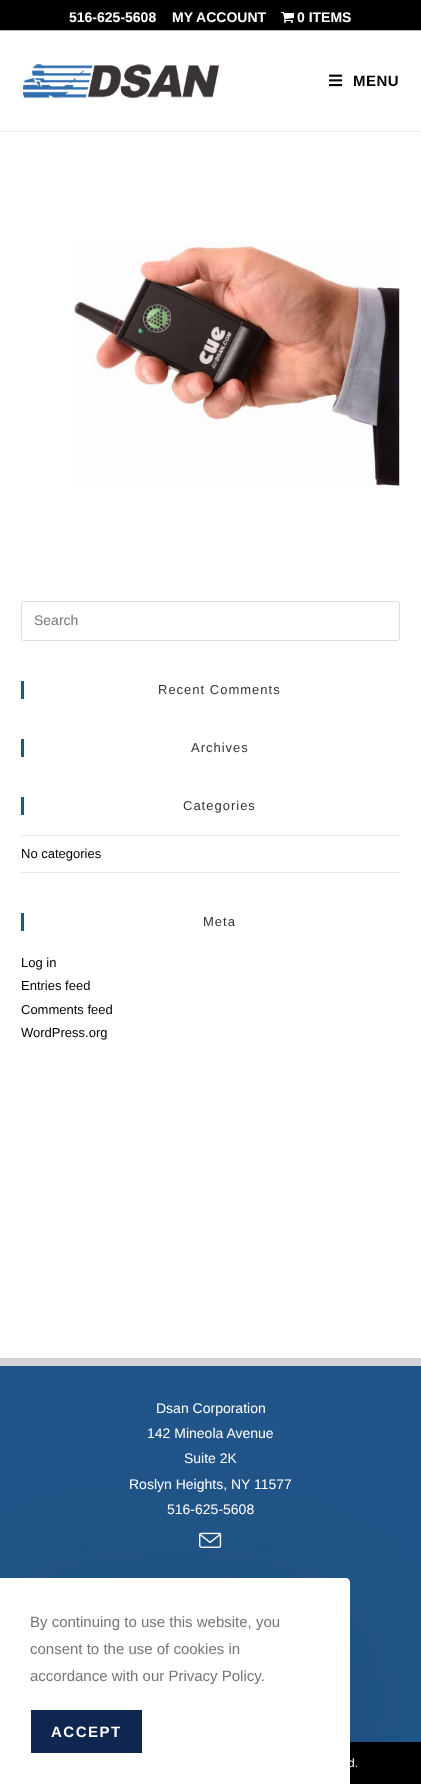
<svg xmlns="http://www.w3.org/2000/svg" width="421" height="1784" viewBox="0 0 421 1784">
  <rect width="100%" height="100%" fill="#fff"/>
  <path d="M0 0h421v30H0z" fill="#000"/>
  <path d="M0 30h421v1H0z" fill="#b2b2b2"/>
  <image x="281" y="12" width="13" height="11" href="img/1.png"/>
  <path d="M0 131h421v1H0z" fill="#ebebeb"/>
  <image x="23" y="64" width="196" height="34" href="img/2.png"/>
  <image x="329" y="74" width="14" height="13" href="img/3.png"/>
  <image x="74" y="242" width="326" height="246" href="img/4.png"/>
  <rect x="21.5" y="601.5" width="378" height="39" rx="2.5" fill="none" stroke="#ddd"/>
  <path d="M21 681h3v18H21z" fill="#215589"/>
  <path d="M21 739h3v18H21z" fill="#215589"/>
  <path d="M21 797h3v18H21z" fill="#215589"/>
  <path d="M21 835h379v1H21z" fill="#e9e9e9"/>
  <path d="M21 872h379v1H21z" fill="#e9e9e9"/>
  <path d="M21 913h3v18H21z" fill="#215589"/>
  <path d="M0 1358h421v8H0z" fill="#d3d3d3"/>
  <path d="M0 1366h421v376H0z" fill="#215589"/>
  <image x="199" y="1532" width="23" height="16" href="img/5.png"/>
  <path d="M350 1742h71v42H350z" fill="#000"/>
  <rect y="1598" width="350" height="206" rx="4" fill="#0000001a" filter="blur(75px)"/>
  <path d="M0 1578H346C348 1578 350 1580 350 1582V1784H0Z" fill="#fff"/>
  <path d="M31 1710h111v43H31z" fill="#0e2650"/>
  <g font-family="Liberation Sans" font-size="14" font-weight="bold" fill="#fff">
    <text x="69" y="22">516-625-5608</text>
    <text x="172" y="22">MY ACCOUNT</text>
    <text x="297" y="22">0 ITEMS</text>
  </g>
  <text x="353" y="86" font-family="Liberation Sans" font-size="15" font-weight="bold" letter-spacing="0.5" fill="#000">MENU</text>
  <text x="34" y="625" font-family="Liberation Sans" font-size="14" fill="#757575">Search</text>
  <g font-family="Liberation Sans" font-size="13" letter-spacing="1" fill="#333">
    <text x="158" y="694">Recent Comments</text>
    <text x="191" y="752">Archives</text>
    <text x="183" y="810">Categories</text>
  </g>
  <text x="21" y="858" font-family="Liberation Sans" font-size="13" fill="#000">No categories</text>
  <text x="203" y="926" font-family="Liberation Sans" font-size="13" letter-spacing="1" fill="#333">Meta</text>
  <g font-family="Liberation Sans" font-size="13" fill="#000">
    <text x="21" y="967">Log in</text>
    <text x="21" y="990">Entries feed</text>
    <text x="21" y="1014">Comments feed</text>
    <text x="21" y="1037">WordPress.org</text>
  </g>
  <g font-family="Liberation Sans" font-size="14" fill="#fff">
    <text x="156" y="1413">Dsan Corporation</text>
    <text x="147" y="1438">142 Mineola Avenue</text>
    <text x="184" y="1463">Suite 2K</text>
    <text x="129" y="1489">Roslyn Heights, NY 11577</text>
    <text x="167" y="1514">516-625-5608</text>
  </g>
  <text x="348" y="1767" font-family="Liberation Sans" font-size="12" fill="#fff">d.</text>
  <g font-family="Liberation Sans" font-size="15" fill="#757575">
    <text x="30" y="1627">By continuing to use this website, you</text>
    <text x="30" y="1654">consent to the use of cookies in</text>
    <text x="30" y="1681">accordance with our Privacy Policy.</text>
  </g>
  <text x="51" y="1737" font-family="Liberation Sans" font-size="15" font-weight="bold" letter-spacing="1.5" fill="#fff">ACCEPT</text>
</svg>
